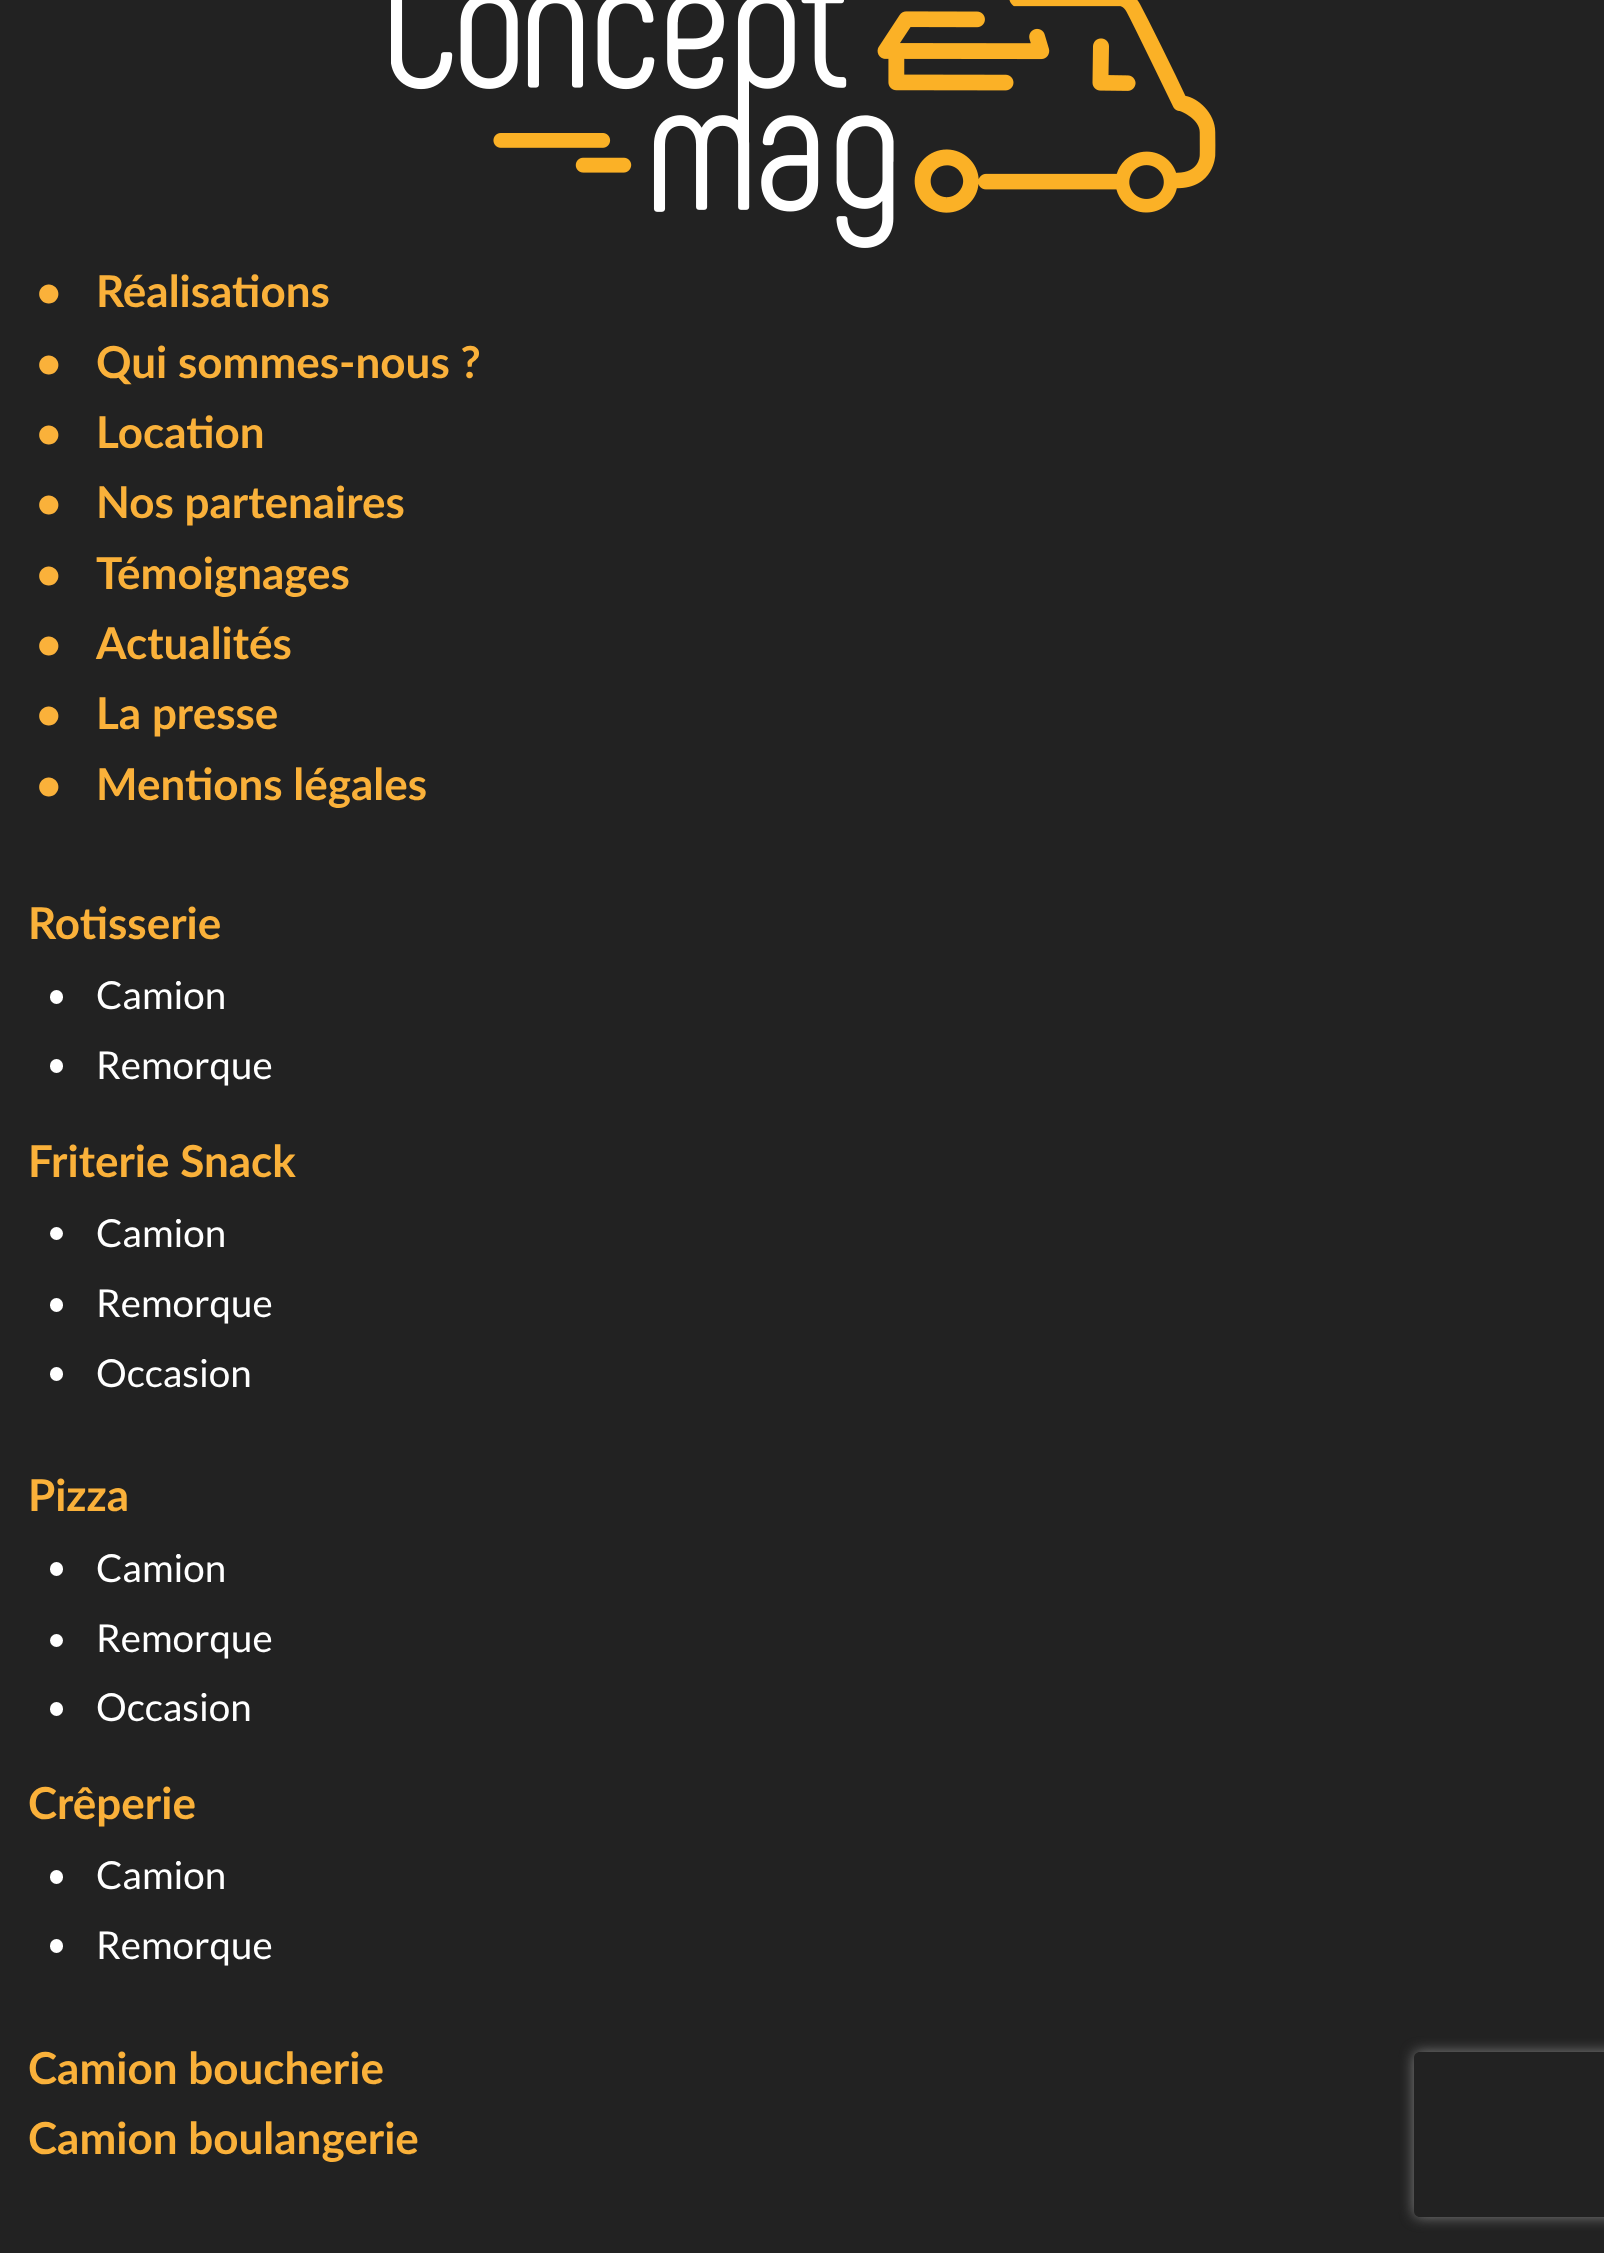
<svg xmlns="http://www.w3.org/2000/svg" width="1604" height="2253" viewBox="0 0 1604 2253">
  <defs>
    <clipPath id="clip1"><path d="M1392 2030H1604V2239H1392ZM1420 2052H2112C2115.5 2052 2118 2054.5 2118 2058V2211C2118 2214.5 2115.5 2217 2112 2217H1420C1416.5 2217 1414 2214.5 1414 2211V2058C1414 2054.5 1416.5 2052 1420 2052Z" clip-rule="evenodd"/></clipPath>
  </defs>
  <rect width="100%" height="100%" fill="#222"/>
  <image x="391" y="0" width="825" height="248" href="img/1.png"/>
  <rect x="50" y="990" width="13" height="14" rx="6.5" fill="#fff"/>
  <rect x="50" y="1059" width="13" height="14" rx="6.5" fill="#fff"/>
  <circle cx="56.5" cy="1233.5" r="6.5" fill="#fff"/>
  <rect x="50" y="1298" width="13" height="14" rx="6.5" fill="#fff"/>
  <rect x="50" y="1367" width="13" height="14" rx="6.5" fill="#fff"/>
  <rect x="50" y="1562" width="13" height="14" rx="6.5" fill="#fff"/>
  <circle cx="56.5" cy="1640.5" r="6.5" fill="#fff"/>
  <rect x="50" y="1702" width="13" height="14" rx="6.5" fill="#fff"/>
  <rect x="50" y="1870" width="13" height="14" rx="6.5" fill="#fff"/>
  <rect x="50" y="1939" width="13" height="14" rx="6.5" fill="#fff"/>
  <g clip-path="url(#clip1)">
    <rect x="1414" y="2052" width="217" height="165" rx="6" fill="#808080" filter="blur(7px)"/>
  </g>
  <g font-family="Lato" font-size="44" font-weight="bold" fill="#fab13a">
    <text x="36" y="307">•</text>
    <text x="96" y="307">Réalisations</text>
    <text x="36" y="378">•</text>
    <text x="96" y="378">Qui sommes-nous ?</text>
    <text x="36" y="448">•</text>
    <text x="96" y="448">Location</text>
    <text x="36" y="518">•</text>
    <text x="96" y="518">Nos partenaires</text>
    <text x="36" y="589">•</text>
    <text x="96" y="589">Témoignages</text>
    <text x="36" y="659">•</text>
    <text x="96" y="659">Actualités</text>
    <text x="36" y="729">•</text>
    <text x="96" y="729">La presse</text>
    <text x="36" y="800">•</text>
    <text x="96" y="800">Mentions légales</text>
    <text x="28" y="939">Rotisserie</text>
  </g>
  <g font-family="Lato" font-size="38.5" fill="#fff">
    <text x="96" y="1009">Camion</text>
    <text x="96" y="1079">Remorque</text>
  </g>
  <text x="28" y="1177" font-family="Lato" font-size="44" font-weight="bold" fill="#fab13a">Friterie Snack</text>
  <g font-family="Lato" font-size="38.5" fill="#fff">
    <text x="96" y="1247">Camion</text>
    <text x="96" y="1317">Remorque</text>
    <text x="96" y="1387">Occasion</text>
  </g>
  <text x="28" y="1511" font-family="Lato" font-size="44" font-weight="bold" fill="#fab13a">Pizza</text>
  <g font-family="Lato" font-size="38.5" fill="#fff">
    <text x="96" y="1582">Camion</text>
    <text x="96" y="1652">Remorque</text>
    <text x="96" y="1721">Occasion</text>
  </g>
  <text x="28" y="1819" font-family="Lato" font-size="44" font-weight="bold" fill="#fab13a">Crêperie</text>
  <g font-family="Lato" font-size="38.5" fill="#fff">
    <text x="96" y="1889">Camion</text>
    <text x="96" y="1959">Remorque</text>
  </g>
  <g font-family="Lato" font-size="44" font-weight="bold" fill="#fab13a">
    <text x="28" y="2084">Camion boucherie</text>
    <text x="28" y="2154">Camion boulangerie</text>
  </g>
</svg>
